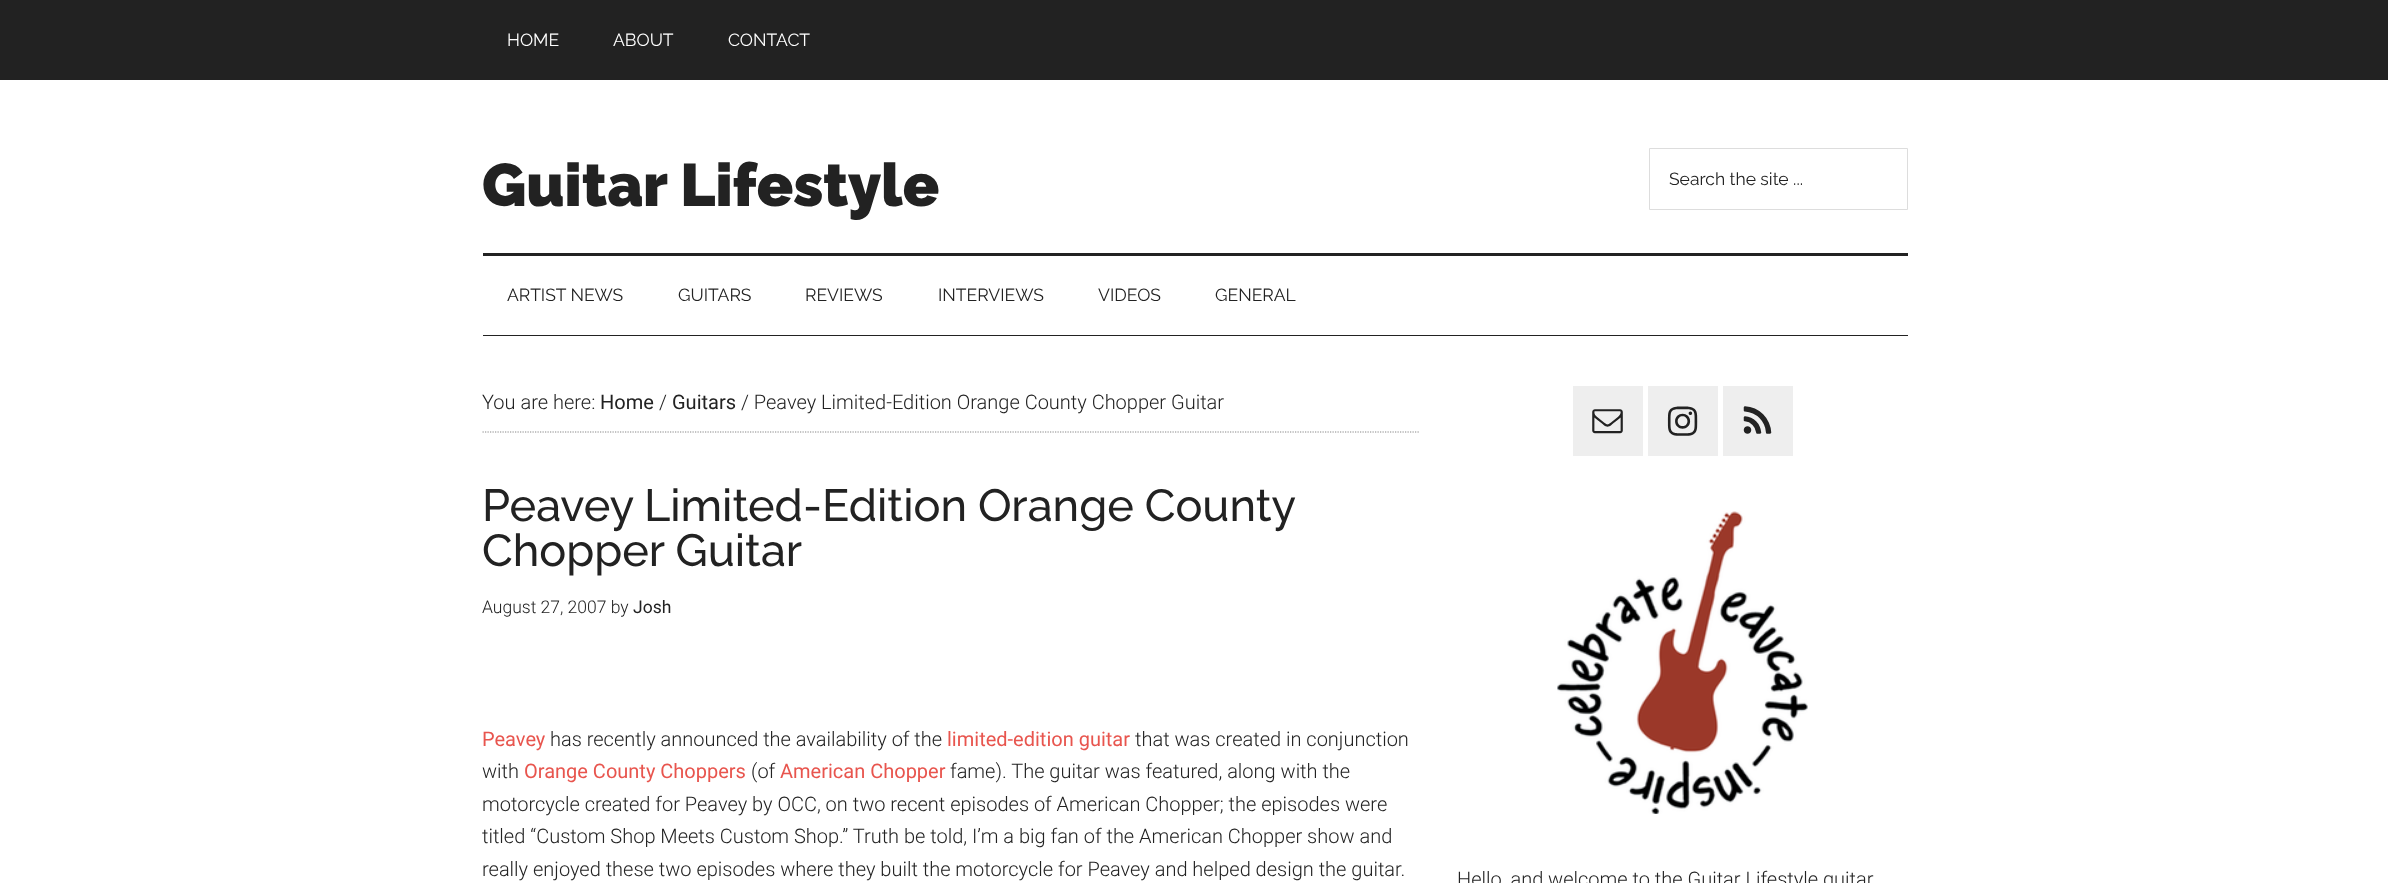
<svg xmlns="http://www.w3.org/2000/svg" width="2388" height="883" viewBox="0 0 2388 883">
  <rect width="100%" height="100%" fill="#fff"/>
  <path d="M0 0h2388v80H0z" fill="#222"/>
  <path d="M483 253h1425v3H483z" fill="#222"/>
  <path d="M1649.5 148.5h258v61H1649.5z" fill="none" stroke="#ddd"/>
  <path d="M483 335h1425v1H483z" fill="#222"/>
  <path d="M482.5 432H1420" fill="none" stroke="#888" stroke-width="1.2" stroke-dasharray="1.25 1.25"/>
  <path d="M1573 386h70v70H1573z" fill="#eee"/>
  <image x="1592" y="409" width="31" height="25" href="img/1.png"/>
  <path d="M1648 386h70v70H1648z" fill="#eee"/>
  <image x="1667" y="406" width="31" height="30" href="img/2.png"/>
  <path d="M1723 386h70v70H1723z" fill="#eee"/>
  <image x="1743" y="406" width="29" height="28" href="img/3.png"/>
  <image x="1557" y="511" width="251" height="303" href="img/4.png"/>
  <g font-family="Raleway" font-size="17.5" fill="#fff">
    <text x="507" y="46">HOME</text>
    <text x="613" y="46">ABOUT</text>
    <text x="728" y="46">CONTACT</text>
  </g>
  <text x="482" y="206" font-family="Raleway" font-size="60" font-weight="900" fill="#222">Guitar Lifestyle</text>
  <g font-family="Raleway" font-size="17.5" fill="#222">
    <text x="1669" y="185">Search the site ...</text>
    <text x="507" y="301">ARTIST NEWS</text>
    <text x="678" y="301">GUITARS</text>
    <text x="805" y="301">REVIEWS</text>
    <text x="938" y="301">INTERVIEWS</text>
    <text x="1098" y="301">VIDEOS</text>
    <text x="1215" y="301">GENERAL</text>
  </g>
  <text x="482" y="409" font-family="Roboto" font-size="20" font-weight="300" fill="#222">You are here:</text>
  <text x="600" y="409" font-family="Roboto" font-size="20" fill="#222">Home</text>
  <text x="659" y="409" font-family="Roboto" font-size="20" font-weight="300" fill="#222">/</text>
  <text x="672" y="409" font-family="Roboto" font-size="20" fill="#222">Guitars</text>
  <text x="741" y="409" font-family="Roboto" font-size="20" font-weight="300" fill="#222">/ Peavey Limited-Edition Orange County Chopper Guitar</text>
  <g font-family="Raleway" font-size="45" font-weight="500" fill="#222">
    <text x="482" y="521" word-spacing="-0.5">Peavey Limited-Edition Orange County</text>
    <text x="482" y="566">Chopper Guitar</text>
  </g>
  <text x="482" y="613" font-family="Roboto" font-size="17.5" font-weight="300" fill="#222">August 27, 2007 by</text>
  <text x="633" y="613" font-family="Roboto" font-size="17.5" fill="#222">Josh</text>
  <text x="482" y="746" font-family="Roboto" font-size="20" fill="#e8554e">Peavey</text>
  <text x="550" y="746" font-family="Roboto" font-size="20" font-weight="300" fill="#222">has recently announced the availability of the</text>
  <text x="947" y="746" font-family="Roboto" font-size="20" fill="#e8554e">limited-edition guitar</text>
  <g font-family="Roboto" font-size="20" font-weight="300" fill="#222">
    <text x="1135" y="746">that was created in conjunction</text>
    <text x="482" y="778">with</text>
  </g>
  <text x="524" y="778" font-family="Roboto" font-size="20" fill="#e8554e">Orange County Choppers</text>
  <text x="751" y="778" font-family="Roboto" font-size="20" font-weight="300" fill="#222">(of</text>
  <text x="780" y="778" font-family="Roboto" font-size="20" fill="#e8554e">American Chopper</text>
  <g font-family="Roboto" font-size="20" font-weight="300" fill="#222">
    <text x="950" y="778">fame). The guitar was featured, along with the</text>
    <text x="482" y="811">motorcycle created for Peavey by OCC, on two recent episodes of American Chopper; the episodes were</text>
    <text x="482" y="843">titled “Custom Shop Meets Custom Shop.” Truth be told, I’m a big fan of the American Chopper show and</text>
    <text x="482" y="876">really enjoyed these two episodes where they built the motorcycle for Peavey and helped design the guitar.</text>
    <text x="1457" y="886">Hello, and welcome to the Guitar Lifestyle guitar</text>
  </g>
</svg>
